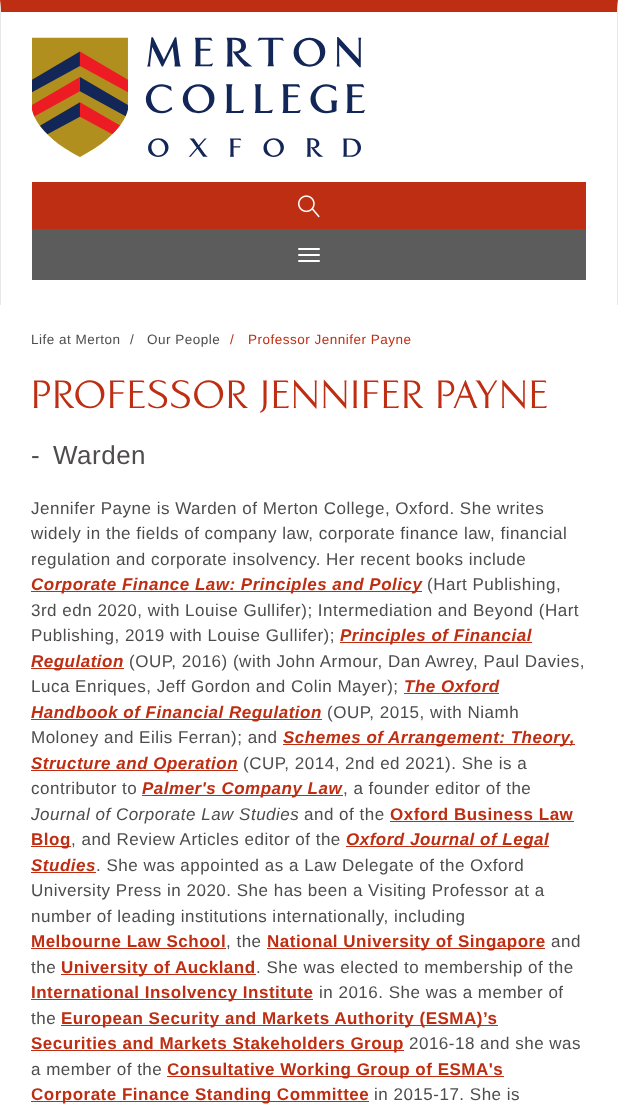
<svg xmlns="http://www.w3.org/2000/svg" width="618" height="1114" viewBox="0 0 618 1114">
  <rect width="100%" height="100%" fill="#fff"/>
  <path d="M0 0H618L617 12H1Z" fill="#be2e12"/>
  <path d="M618 0V305H617V12Z" fill="#e7e7e7"/>
  <path d="M0 305V0L1 12V305Z" fill="#e7e7e7"/>
  <image x="32" y="37" width="333" height="120" href="img/1.png"/>
  <path d="M32 182h554v47H32z" fill="#be2e12"/>
  <image x="298" y="195" width="22" height="23" href="img/2.png"/>
  <path d="M32 229h554v51H32z" fill="#5c5c5c"/>
  <rect x="298" y="248" width="22" height="2" rx="1" fill="#fff"/>
  <rect x="298" y="254" width="22" height="2" rx="1" fill="#fff"/>
  <rect x="298" y="260" width="22" height="2" rx="1" fill="#fff"/>
  <path d="M31 591h391v1H31z" fill="#be2e12"/>
  <path d="M340 642h192v1H340z" fill="#be2e12"/>
  <path d="M31 668h93v1H31z" fill="#be2e12"/>
  <path d="M404 693h95v1H404z" fill="#be2e12"/>
  <path d="M31 719h291v1H31z" fill="#be2e12"/>
  <path d="M283 744h292v1H283z" fill="#be2e12"/>
  <path d="M31 770h207v1H31z" fill="#be2e12"/>
  <path d="M142 795h201v1H142z" fill="#be2e12"/>
  <path d="M390 821h184v1H390z" fill="#be2e12"/>
  <path d="M31 846h40v1H31z" fill="#be2e12"/>
  <path d="M346 846h203v1H346z" fill="#be2e12"/>
  <path d="M31 872h65v1H31z" fill="#be2e12"/>
  <path d="M31 948h195v1H31z" fill="#be2e12"/>
  <path d="M267 948h278v1H267z" fill="#be2e12"/>
  <path d="M61 974h195v1H61z" fill="#be2e12"/>
  <path d="M31 999h282v1H31z" fill="#be2e12"/>
  <path d="M61 1025h437v1H61z" fill="#be2e12"/>
  <path d="M31 1050h373v1H31z" fill="#be2e12"/>
  <path d="M167 1076h337v1H167z" fill="#be2e12"/>
  <path d="M31 1101h338v1H31z" fill="#be2e12"/>
  <g font-family="Liberation Sans" font-size="13.5" letter-spacing="0.5" fill="#4f4c4d">
    <text x="31" y="344">Life at Merton</text>
    <text x="130" y="344">/</text>
    <text x="147" y="344">Our People</text>
  </g>
  <g font-family="Liberation Sans" font-size="13.5" letter-spacing="0.5" fill="#be2e12">
    <text x="230" y="344">/</text>
    <text x="248" y="344">Professor Jennifer Payne</text>
  </g>
  <text x="31" y="408" font-family="'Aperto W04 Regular'" font-size="40" letter-spacing="1" fill="#be2e12">PROFESSOR JENNIFER PAYNE</text>
  <g font-family="Liberation Sans" font-size="26" letter-spacing="0.5" fill="#4f4c4d">
    <text x="31" y="464">-</text>
    <text x="53" y="464">Warden</text>
  </g>
  <g font-family="Liberation Sans" font-size="17" letter-spacing="0.5" fill="#4f4c4d">
    <text x="31" y="514">Jennifer Payne is Warden of Merton College, Oxford. She writes</text>
    <text x="31" y="539">widely in the fields of company law, corporate finance law, financial</text>
    <text x="31" y="565">regulation and corporate insolvency. Her recent books include</text>
  </g>
  <text x="31" y="590" font-family="Liberation Sans" font-size="17" font-weight="bold" font-style="italic" letter-spacing="0.5" fill="#be2e12">Corporate Finance Law: Principles and Policy</text>
  <g font-family="Liberation Sans" font-size="17" letter-spacing="0.5" fill="#4f4c4d">
    <text x="427" y="590">(Hart Publishing,</text>
    <text x="31" y="616">3rd edn 2020, with Louise Gullifer); Intermediation and Beyond (Hart</text>
    <text x="31" y="641">Publishing, 2019 with Louise Gullifer);</text>
  </g>
  <g font-family="Liberation Sans" font-size="17" font-weight="bold" font-style="italic" letter-spacing="0.5" fill="#be2e12">
    <text x="340" y="641">Principles of Financial</text>
    <text x="31" y="667">Regulation</text>
  </g>
  <g font-family="Liberation Sans" font-size="17" letter-spacing="0.5" fill="#4f4c4d">
    <text x="129" y="667">(OUP, 2016) (with John Armour, Dan Awrey, Paul Davies,</text>
    <text x="31" y="692">Luca Enriques, Jeff Gordon and Colin Mayer);</text>
  </g>
  <g font-family="Liberation Sans" font-size="17" font-weight="bold" font-style="italic" letter-spacing="0.5" fill="#be2e12">
    <text x="404" y="692">The Oxford</text>
    <text x="31" y="718">Handbook of Financial Regulation</text>
  </g>
  <g font-family="Liberation Sans" font-size="17" letter-spacing="0.5" fill="#4f4c4d">
    <text x="327" y="718">(OUP, 2015, with Niamh</text>
    <text x="31" y="743">Moloney and Eilis Ferran); and</text>
  </g>
  <g font-family="Liberation Sans" font-size="17" font-weight="bold" font-style="italic" letter-spacing="0.5" fill="#be2e12">
    <text x="283" y="743">Schemes of Arrangement: Theory,</text>
    <text x="31" y="769">Structure and Operation</text>
  </g>
  <g font-family="Liberation Sans" font-size="17" letter-spacing="0.5" fill="#4f4c4d">
    <text x="243" y="769">(CUP, 2014, 2nd ed 2021). She is a</text>
    <text x="31" y="794">contributor to</text>
  </g>
  <text x="142" y="794" font-family="Liberation Sans" font-size="17" font-weight="bold" font-style="italic" letter-spacing="0.5" fill="#be2e12">Palmer's Company Law</text>
  <text x="343" y="794" font-family="Liberation Sans" font-size="17" letter-spacing="0.5" fill="#4f4c4d">, a founder editor of the</text>
  <text x="31" y="820" font-family="Liberation Sans" font-size="17" font-style="italic" letter-spacing="0.5" fill="#4f4c4d">Journal of Corporate Law Studies</text>
  <text x="304" y="820" font-family="Liberation Sans" font-size="17" letter-spacing="0.5" fill="#4f4c4d">and of the</text>
  <g font-family="Liberation Sans" font-size="17" font-weight="bold" letter-spacing="0.5" fill="#be2e12">
    <text x="390" y="820">Oxford Business Law</text>
    <text x="31" y="845">Blog</text>
  </g>
  <text x="71" y="845" font-family="Liberation Sans" font-size="17" letter-spacing="0.5" fill="#4f4c4d">, and Review Articles editor of the</text>
  <g font-family="Liberation Sans" font-size="17" font-weight="bold" font-style="italic" letter-spacing="0.5" fill="#be2e12">
    <text x="346" y="845">Oxford Journal of Legal</text>
    <text x="31" y="871">Studies</text>
  </g>
  <g font-family="Liberation Sans" font-size="17" letter-spacing="0.5" fill="#4f4c4d">
    <text x="96" y="871">. She was appointed as a Law Delegate of the Oxford</text>
    <text x="31" y="896">University Press in 2020. She has been a Visiting Professor at a</text>
    <text x="31" y="922">number of leading institutions internationally, including</text>
  </g>
  <text x="31" y="947" font-family="Liberation Sans" font-size="17" font-weight="bold" letter-spacing="0.5" fill="#be2e12">Melbourne Law School</text>
  <text x="226" y="947" font-family="Liberation Sans" font-size="17" letter-spacing="0.5" fill="#4f4c4d">, the</text>
  <text x="267" y="947" font-family="Liberation Sans" font-size="17" font-weight="bold" letter-spacing="0.5" fill="#be2e12">National University of Singapore</text>
  <g font-family="Liberation Sans" font-size="17" letter-spacing="0.5" fill="#4f4c4d">
    <text x="551" y="947">and</text>
    <text x="31" y="973">the</text>
  </g>
  <text x="61" y="973" font-family="Liberation Sans" font-size="17" font-weight="bold" letter-spacing="0.5" fill="#be2e12">University of Auckland</text>
  <text x="256" y="973" font-family="Liberation Sans" font-size="17" letter-spacing="0.5" fill="#4f4c4d">. She was elected to membership of the</text>
  <text x="31" y="998" font-family="Liberation Sans" font-size="17" font-weight="bold" letter-spacing="0.5" fill="#be2e12">International Insolvency Institute</text>
  <g font-family="Liberation Sans" font-size="17" letter-spacing="0.5" fill="#4f4c4d">
    <text x="319" y="998">in 2016. She was a member of</text>
    <text x="31" y="1024">the</text>
  </g>
  <g font-family="Liberation Sans" font-size="17" font-weight="bold" letter-spacing="0.5" fill="#be2e12">
    <text x="61" y="1024">European Security and Markets Authority (ESMA)’s</text>
    <text x="31" y="1049">Securities and Markets Stakeholders Group</text>
  </g>
  <g font-family="Liberation Sans" font-size="17" letter-spacing="0.5" fill="#4f4c4d">
    <text x="409" y="1049">2016-18 and she was</text>
    <text x="31" y="1075">a member of the</text>
  </g>
  <g font-family="Liberation Sans" font-size="17" font-weight="bold" letter-spacing="0.5" fill="#be2e12">
    <text x="167" y="1075">Consultative Working Group of ESMA's</text>
    <text x="31" y="1100">Corporate Finance Standing Committee</text>
  </g>
  <text x="374" y="1100" font-family="Liberation Sans" font-size="17" letter-spacing="0.5" fill="#4f4c4d">in 2015-17. She is</text>
</svg>
